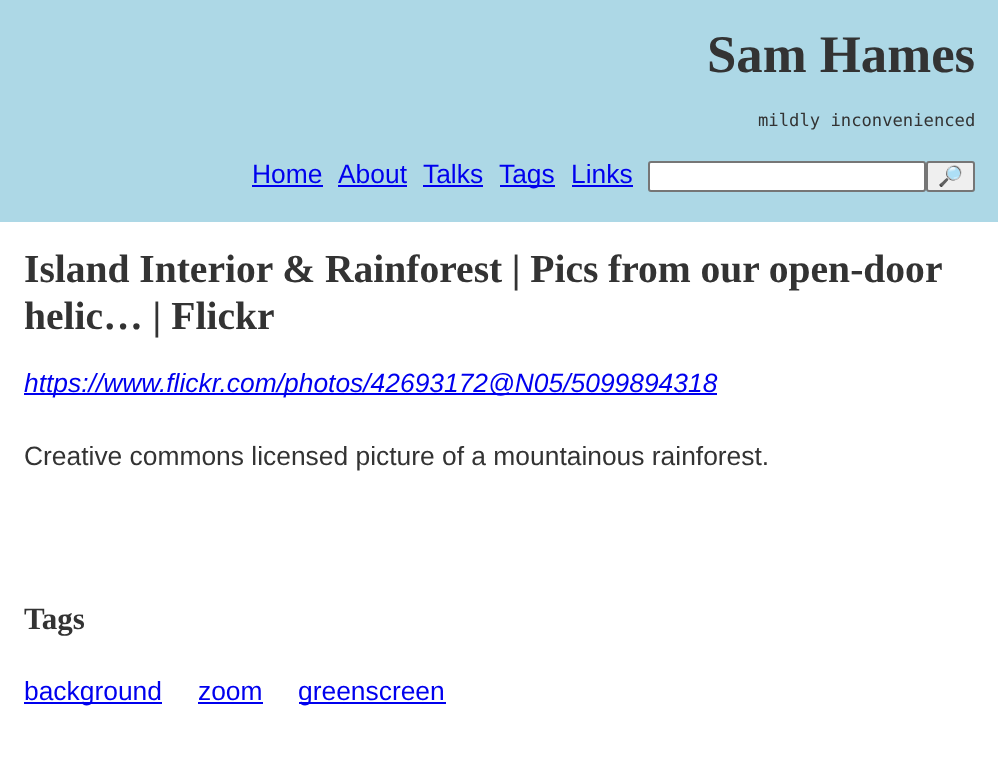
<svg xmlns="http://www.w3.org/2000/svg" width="998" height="784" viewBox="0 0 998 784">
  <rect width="100%" height="100%" fill="#fff"/>
  <path d="M0 0h998v222H0z" fill="#add8e6"/>
  <path d="M252 185h71v2H252z" fill="#00e"/>
  <path d="M338 185h69v2H338z" fill="#00e"/>
  <path d="M423 185h60v2H423z" fill="#00e"/>
  <path d="M500 185h55v2H500z" fill="#00e"/>
  <path d="M572 185h61v2H572z" fill="#00e"/>
  <rect x="649" y="162" width="276" height="29" rx="2" fill="#fff" stroke="#767676" stroke-width="2"/>
  <rect x="927" y="162" width="47" height="29" rx="2" fill="#efefef" stroke="#767676" stroke-width="2"/>
  <path d="M24 393h693v2H24z" fill="#00e"/>
  <path d="M24 702h138v2H24z" fill="#00e"/>
  <path d="M198 702h65v2H198z" fill="#00e"/>
  <path d="M299 702h147v2H299z" fill="#00e"/>
  <text x="707" y="72" font-family="Liberation Serif" font-size="52.75" font-weight="bold" fill="#333">Sam Hames</text>
  <text x="758" y="126" font-family="DejaVu Sans Mono" font-size="17.2" fill="#333">mildly inconvenienced</text>
  <g font-family="Liberation Sans" font-size="26.4" fill="#00e">
    <text x="252" y="183">Home</text>
    <text x="338" y="183">About</text>
    <text x="423" y="183">Talks</text>
    <text x="499" y="183">Tags</text>
    <text x="571" y="183">Links</text>
  </g>
  <text x="938" y="183" font-family="Noto Color Emoji" font-size="20" fill="#000">🔎</text>
  <g font-family="Liberation Serif" font-size="39.6" font-weight="bold" fill="#333">
    <text x="24" y="282" word-spacing="-0.25">Island Interior &amp; Rainforest | Pics from our open-door</text>
    <text x="24" y="329">helic… | Flickr</text>
  </g>
  <text x="24" y="392" font-family="Liberation Sans" font-size="26.4" font-style="italic" fill="#00e">https://www.flickr.com/photos/42693172@N05/5099894318</text>
  <text x="24" y="465" font-family="Liberation Sans" font-size="26.4" fill="#333">Creative commons licensed picture of a mountainous rainforest.</text>
  <text x="24" y="629" font-family="Liberation Serif" font-size="31" font-weight="bold" fill="#333">Tags</text>
  <g font-family="Liberation Sans" font-size="26.4" fill="#00e">
    <text x="24" y="700">background</text>
    <text x="198" y="700">zoom</text>
    <text x="298" y="700">greenscreen</text>
  </g>
</svg>
